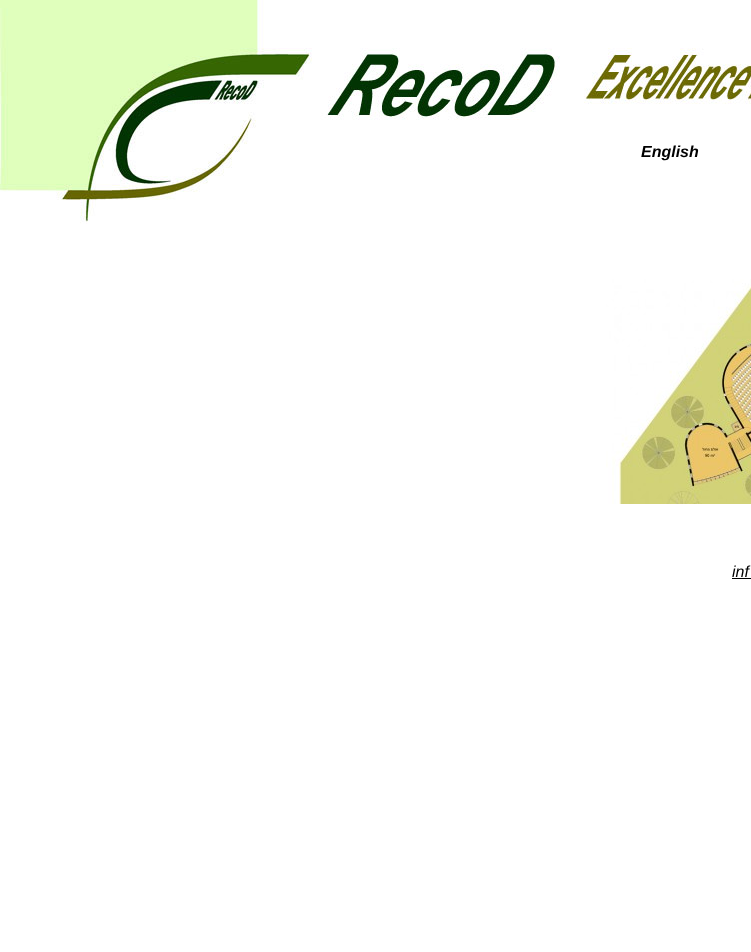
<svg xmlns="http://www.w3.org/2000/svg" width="751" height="952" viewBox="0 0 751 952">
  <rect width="100%" height="100%" fill="#fff"/>
  <image x="0" y="0" width="751" height="224" href="img/1.png"/>
  <image x="606" y="279" width="145" height="225" href="img/2.png"/>
  <path d="M732 578h19v1H732z" fill="#000"/>
  <text x="641" y="157" font-family="Liberation Sans" font-size="16" font-weight="bold" font-style="italic" fill="#000">English</text>
  <text x="732" y="577" font-family="Liberation Sans" font-size="16" font-style="italic" fill="#000">inf</text>
</svg>
